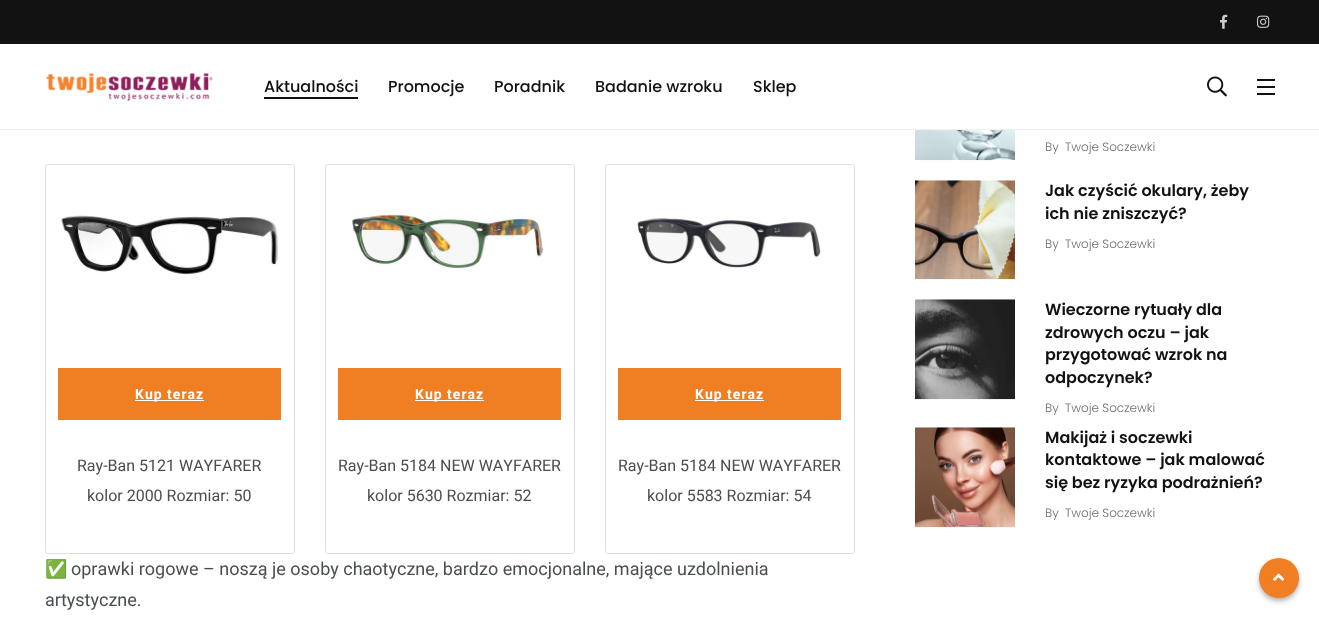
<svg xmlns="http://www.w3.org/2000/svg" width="1319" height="618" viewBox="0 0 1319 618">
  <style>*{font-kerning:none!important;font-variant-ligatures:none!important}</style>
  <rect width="100%" height="100%" fill="#fff"/>
  <path d="M0 0h1319v44H0z" fill="#121213"/>
  <image x="1220" y="14" width="8" height="15" href="img/1.png"/>
  <image x="1257" y="15" width="13" height="13" href="img/2.png"/>
  <path d="M0 129h1319v1H0z" fill="#f0f0f0"/>
  <image x="46" y="73" width="167" height="29" href="img/3.png"/>
  <path d="M264 97h94v2H264z" fill="#121213"/>
  <image x="1207" y="76" width="20" height="21" href="img/4.png"/>
  <path d="M1257 79h18v2H1257z" fill="#121213"/>
  <path d="M1257 86h18v2H1257z" fill="#121213"/>
  <path d="M1257 93h18v2H1257z" fill="#121213"/>
  <rect x="45.5" y="164.5" width="249" height="389" rx="2" fill="none" stroke="#dfdfdf"/>
  <image x="46" y="165" width="248" height="110" href="img/5.png"/>
  <path d="M58 368h223v52H58z" fill="#ef7f22"/>
  <path d="M135 400h69v1H135z" fill="#fff"/>
  <rect x="325.5" y="164.5" width="249" height="389" rx="2" fill="none" stroke="#dfdfdf"/>
  <image x="326" y="165" width="248" height="104" href="img/6.png"/>
  <path d="M338 368h223v52H338z" fill="#ef7f22"/>
  <path d="M415 400h69v1H415z" fill="#fff"/>
  <rect x="605.5" y="164.5" width="249" height="389" rx="2" fill="none" stroke="#dfdfdf"/>
  <image x="606" y="165" width="248" height="103" href="img/7.png"/>
  <path d="M618 368h223v52H618z" fill="#ef7f22"/>
  <path d="M695 400h69v1H695z" fill="#fff"/>
  <image x="915" y="130" width="100" height="31" href="img/8.png"/>
  <image x="915" y="180" width="100" height="100" href="img/9.png"/>
  <image x="915" y="299" width="100" height="101" href="img/10.png"/>
  <image x="915" y="427" width="100" height="101" href="img/11.png"/>
  <rect x="1259" y="561" width="40" height="40" rx="20" fill="#0000004d" filter="blur(2.5px)"/>
  <circle cx="1279" cy="578" r="20" fill="#ef7f22"/>
  <image x="1273" y="573" width="12" height="8" href="img/12.png"/>
  <g font-family="Poppins" font-size="16" font-weight="500" fill="#121213">
    <text x="264" y="92">Aktualności</text>
    <text x="388" y="92">Promocje</text>
    <text x="494" y="92">Poradnik</text>
    <text x="595" y="92">Badanie wzroku</text>
    <text x="753" y="92">Sklep</text>
  </g>
  <text x="135" y="399" font-family="Roboto" font-size="14" font-weight="bold" letter-spacing="1" fill="#fff">Kup teraz</text>
  <g font-family="Roboto" font-size="16" fill="#494e51">
    <text x="77" y="471">Ray-Ban 5121 WAYFARER</text>
    <text x="87" y="501">kolor 2000 Rozmiar: 50</text>
  </g>
  <text x="415" y="399" font-family="Roboto" font-size="14" font-weight="bold" letter-spacing="1" fill="#fff">Kup teraz</text>
  <g font-family="Roboto" font-size="16" fill="#494e51">
    <text x="338" y="471">Ray-Ban 5184 NEW WAYFARER</text>
    <text x="367" y="501">kolor 5630 Rozmiar: 52</text>
  </g>
  <text x="695" y="399" font-family="Roboto" font-size="14" font-weight="bold" letter-spacing="1" fill="#fff">Kup teraz</text>
  <g font-family="Roboto" font-size="16" fill="#494e51">
    <text x="618" y="471">Ray-Ban 5184 NEW WAYFARER</text>
    <text x="647" y="501">kolor 5583 Rozmiar: 54</text>
  </g>
  <text x="45" y="575" font-family="Noto Color Emoji" font-size="18" fill="#494e51">✅</text>
  <g font-family="Roboto" font-size="18" fill="#494e51">
    <text x="71" y="575">oprawki rogowe – noszą je osoby chaotyczne, bardzo emocjonalne, mające uzdolnienia</text>
    <text x="45" y="606">artystyczne.</text>
  </g>
  <g font-family="Poppins" font-size="12" font-weight="300" fill="#6b7074">
    <text x="1045" y="151">By</text>
    <text x="1065" y="151">Twoje Soczewki</text>
  </g>
  <g font-family="Poppins" font-size="16" font-weight="600" fill="#121213">
    <text x="1045" y="196">Jak czyścić okulary, żeby</text>
    <text x="1045" y="219">ich nie zniszczyć?</text>
  </g>
  <g font-family="Poppins" font-size="12" font-weight="300" fill="#6b7074">
    <text x="1045" y="248">By</text>
    <text x="1065" y="248">Twoje Soczewki</text>
  </g>
  <g font-family="Poppins" font-size="16" font-weight="600" fill="#121213">
    <text x="1045" y="315">Wieczorne rytuały dla</text>
    <text x="1045" y="338">zdrowych oczu – jak</text>
    <text x="1045" y="360">przygotować wzrok na</text>
    <text x="1045" y="383">odpoczynek?</text>
  </g>
  <g font-family="Poppins" font-size="12" font-weight="300" fill="#6b7074">
    <text x="1045" y="412">By</text>
    <text x="1065" y="412">Twoje Soczewki</text>
  </g>
  <g font-family="Poppins" font-size="16" font-weight="600" fill="#121213">
    <text x="1045" y="443">Makijaż i soczewki</text>
    <text x="1045" y="465">kontaktowe – jak malować</text>
    <text x="1045" y="488">się bez ryzyka podrażnień?</text>
  </g>
  <g font-family="Poppins" font-size="12" font-weight="300" fill="#6b7074">
    <text x="1045" y="517">By</text>
    <text x="1065" y="517">Twoje Soczewki</text>
  </g>
</svg>
